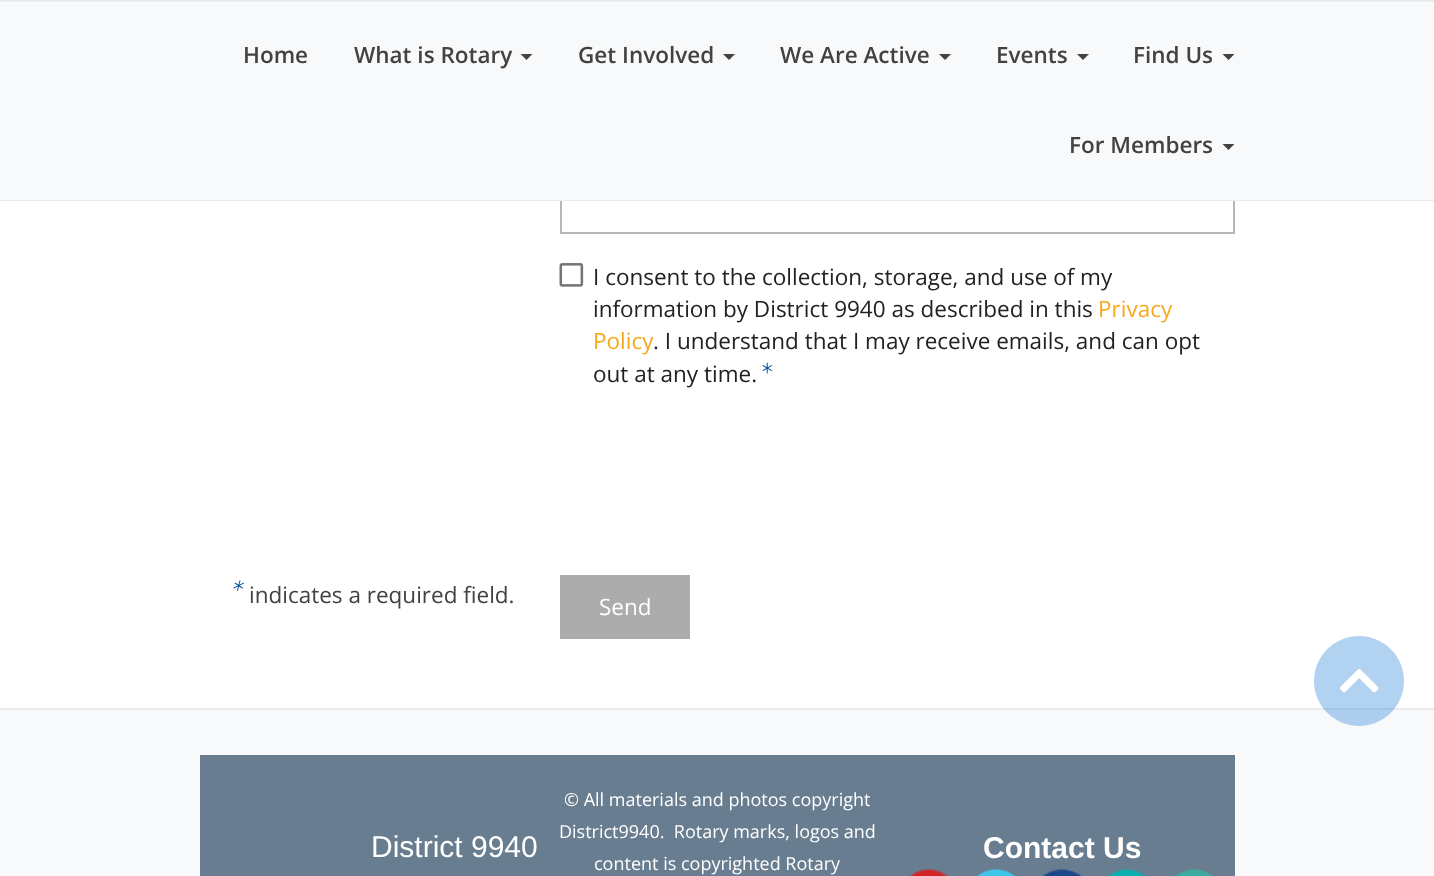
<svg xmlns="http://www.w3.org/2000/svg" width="1434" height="876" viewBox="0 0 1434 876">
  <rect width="100%" height="100%" fill="#fff"/>
  <path d="M0 0h1434v2H0z" fill="#e9ecef"/>
  <path d="M561 34h673v199H561z" fill="none" stroke="#b7b7b7" stroke-width="2"/>
  <path d="M0 3h1434v197H0z" fill="#f8f9fa"/>
  <path d="M0 200h1434v1H0z" fill="#e9ecef"/>
  <path d="M520.5 54H532.5L526.5 60Z" fill="#424242"/>
  <path d="M723 54H735L729 60Z" fill="#424242"/>
  <path d="M939 54H951L945 60Z" fill="#424242"/>
  <path d="M1077 54H1089L1083 60Z" fill="#424242"/>
  <path d="M1222.5 54H1234.5L1228.5 60Z" fill="#424242"/>
  <path d="M1222.5 144H1234.5L1228.5 150Z" fill="#424242"/>
  <image x="559" y="263" width="25" height="24" href="img/1.png"/>
  <image x="762" y="362" width="10" height="12" href="img/2.png"/>
  <image x="233" y="580" width="11" height="11" href="img/3.png"/>
  <path d="M560 575h130v64H560z" fill="#acacac"/>
  <path d="M0 710h1434v166H0z" fill="#f8f9fa"/>
  <path d="M0 708h1434v2H0z" fill="#e9ecef"/>
  <circle cx="1359" cy="681" r="45" fill="#0069d54d"/>
  <image x="1340" y="669" width="39" height="24" href="img/4.png"/>
  <path d="M200 755h1035v121H200z" fill="#687d90"/>
  <image x="909" y="869" width="39" height="7" href="img/5.png"/>
  <image x="976" y="869" width="40" height="7" href="img/6.png"/>
  <image x="1042" y="869" width="40" height="7" href="img/7.png"/>
  <image x="1107" y="869" width="39" height="7" href="img/8.png"/>
  <image x="1174" y="869" width="40" height="7" href="img/9.png"/>
  <g font-family="Open Sans" font-size="22.5" font-weight="600" fill="#424242">
    <text x="243" y="63">Home</text>
    <text x="354" y="63">What is Rotary</text>
    <text x="578" y="63">Get Involved</text>
    <text x="780" y="63">We Are Active</text>
    <text x="996" y="63">Events</text>
    <text x="1133" y="63">Find Us</text>
    <text x="1069" y="153">For Members</text>
  </g>
  <g font-family="Open Sans" font-size="22.5" fill="#222">
    <text x="593" y="285">I consent to the collection, storage, and use of my</text>
    <text x="593" y="317">information by District 9940 as described in this</text>
  </g>
  <g font-family="Open Sans" font-size="22.5" fill="#f7a81b">
    <text x="1098" y="317">Privacy</text>
    <text x="593" y="349">Policy</text>
  </g>
  <g font-family="Open Sans" font-size="22.5" fill="#222">
    <text x="653" y="349">. I understand that I may receive emails, and can opt</text>
    <text x="593" y="382">out at any time.</text>
  </g>
  <text x="249" y="603" font-family="Open Sans" font-size="22.5" fill="#424242">indicates a required field.</text>
  <text x="599" y="615" font-family="Open Sans" font-size="22.5" fill="#fff">Send</text>
  <text x="371" y="857" font-family="Liberation Sans" font-size="30" fill="#fff">District 9940</text>
  <g font-family="Open Sans" font-size="18" fill="#fff">
    <text x="564" y="806">© All materials and photos copyright</text>
    <text x="559" y="838" xml:space="preserve">District9940.  Rotary marks, logos and</text>
    <text x="594" y="870">content is copyrighted Rotary</text>
  </g>
  <text x="983" y="858" font-family="Liberation Sans" font-size="30" font-weight="bold" fill="#fff">Contact Us</text>
</svg>
